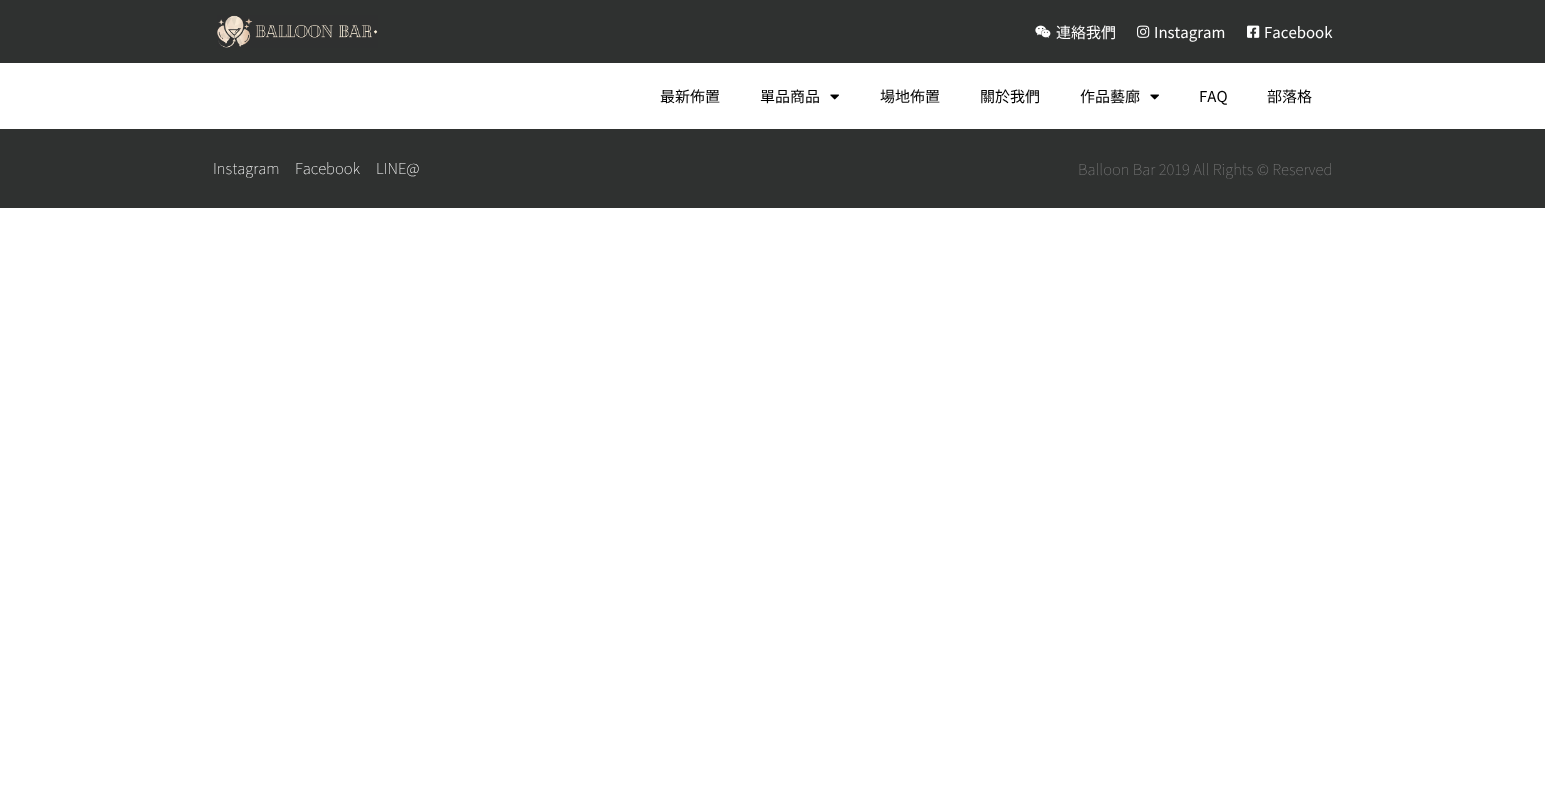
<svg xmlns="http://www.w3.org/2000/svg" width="1545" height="787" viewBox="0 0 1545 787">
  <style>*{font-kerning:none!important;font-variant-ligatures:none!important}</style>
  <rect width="100%" height="100%" fill="#fff"/>
  <path d="M0 0h1545v63H0z" fill="#2f3130"/>
  <image x="217" y="15" width="161" height="33" href="img/1.png"/>
  <image x="1035" y="25" width="16" height="13" href="img/2.png"/>
  <image x="1137" y="25" width="13" height="13" href="img/3.png"/>
  <image x="1247" y="25" width="13" height="13" href="img/4.png"/>
  <image x="830" y="94" width="9" height="6" href="img/5.png"/>
  <image x="1150" y="94" width="9" height="6" href="img/5.png"/>
  <path d="M0 129h1545v79H0z" fill="#2f3130"/>
  <g font-family="Noto Sans JP" font-size="15" fill="#fff">
    <text x="1056" y="38">連絡我們</text>
    <text x="1154" y="38">Instagram</text>
    <text x="1264" y="38">Facebook</text>
  </g>
  <g font-family="Noto Sans JP" font-size="15" fill="#000">
    <text x="660" y="102">最新佈置</text>
    <text x="760" y="102">單品商品</text>
    <text x="880" y="102">場地佈置</text>
    <text x="980" y="102">關於我們</text>
    <text x="1080" y="102">作品藝廊</text>
    <text x="1199" y="102">FAQ</text>
    <text x="1267" y="102">部落格</text>
  </g>
  <g font-family="Noto Sans JP" font-size="15" font-weight="100" fill="#fff">
    <text x="213" y="174">Instagram</text>
    <text x="295" y="174">Facebook</text>
    <text x="376" y="174">LINE@</text>
  </g>
  <text x="1078" y="175" font-family="Noto Sans JP" font-size="15" font-weight="100" fill="#7a7a7a">Balloon Bar 2019 All Rights © Reserved</text>
</svg>
